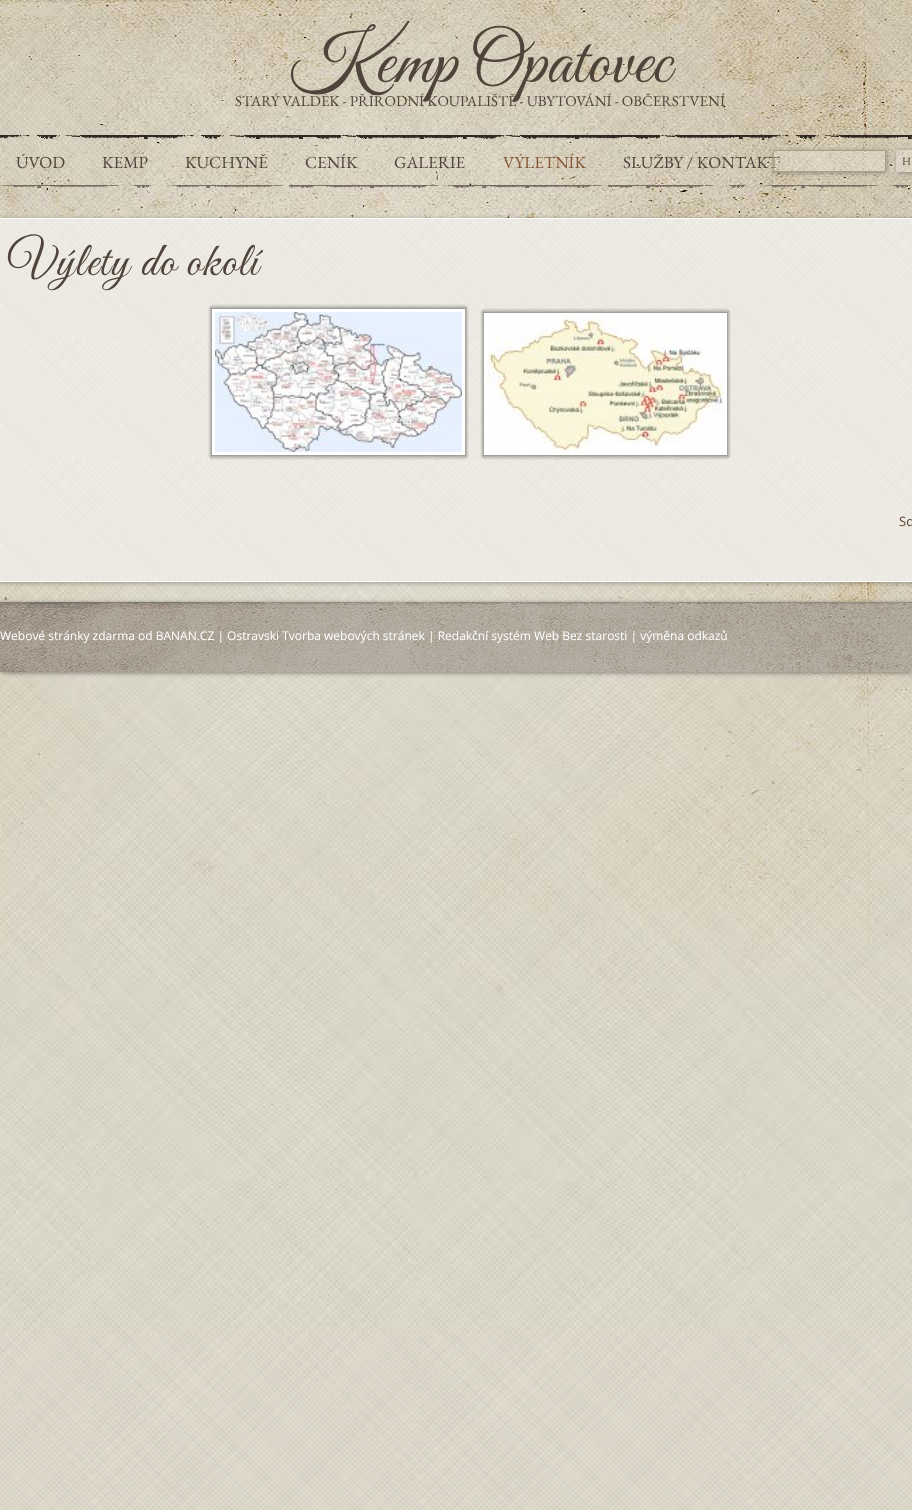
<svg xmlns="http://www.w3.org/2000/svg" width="912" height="1510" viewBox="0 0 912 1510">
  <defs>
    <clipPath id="clip1"><path d="M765 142H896V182H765ZM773 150H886V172H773Z" clip-rule="evenodd"/></clipPath>
    <clipPath id="clip2"><path d="M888 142H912V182H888ZM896 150H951V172H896Z" clip-rule="evenodd"/></clipPath>
  </defs>
  <rect width="100%" height="100%" fill="#fff"/>
  <image x="0" y="1333" width="912" height="177" href="img/1.png"/>
  <image x="0" y="0" width="912" height="1333" href="img/2.png"/>
  <image x="0" y="135" width="912" height="53" href="img/3.png"/>
  <g clip-path="url(#clip1)">
    <path d="M774 151h113v22H774z" fill="#0000004d" filter="blur(2.5px)"/>
  </g>
  <g clip-path="url(#clip2)">
    <path d="M897 151h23v22H897z" fill="#0000004d" filter="blur(2.5px)"/>
  </g>
  <path d="M896 150h16v22H896z" fill="#ffffff33"/>
  <path d="M-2 219h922v364H-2z" fill="#0000004d" filter="blur(2.5px)"/>
  <image x="0" y="219" width="912" height="362" href="img/4.png"/>
  <path d="M-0.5 218.5h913v363H-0.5z" fill="none" stroke="#fff"/>
  <image x="465" y="304" width="4" height="5" href="img/5.png"/>
  <image x="208" y="304" width="257" height="5" href="img/6.png"/>
  <image x="465" y="309" width="4" height="146" href="img/7.png"/>
  <image x="208" y="309" width="4" height="146" href="img/8.png"/>
  <path d="M212 309h253v146H212z" fill="#fff"/>
  <image x="215" y="312" width="247" height="140" href="img/9.png"/>
  <image x="465" y="455" width="4" height="5" href="img/10.png"/>
  <image x="208" y="455" width="257" height="5" href="img/11.png"/>
  <image x="727" y="308" width="4" height="5" href="img/12.png"/>
  <image x="480" y="308" width="247" height="5" href="img/13.png"/>
  <image x="727" y="313" width="4" height="142" href="img/14.png"/>
  <image x="480" y="313" width="4" height="142" href="img/15.png"/>
  <path d="M484 313h243v142H484z" fill="#fff"/>
  <image x="487" y="316" width="237" height="136" href="img/16.png"/>
  <image x="727" y="455" width="4" height="5" href="img/17.png"/>
  <image x="480" y="455" width="247" height="5" href="img/18.png"/>
  <path d="M1 603h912v70H1z" fill="#00000066" filter="blur(2.5px)"/>
  <image x="0" y="602" width="912" height="70" href="img/19.png"/>
  <text x="289" y="82" font-family="Great Vibes" font-size="72" fill="#4f4439">Kemp Opatovec</text>
  <text x="235" y="106" font-family="EB Garamond" font-size="15" fill="#4f4439">STARÝ VALDEK - PŘÍRODNÍ KOUPALIŠTĚ - UBYTOVÁNÍ - OBČERSTVENÍ</text>
  <text x="902" y="165" font-family="EB Garamond" font-size="11" fill="#5d4230">H</text>
  <g font-family="EB Garamond" font-size="17" fill="#4f4439">
    <text x="16" y="168">ÚVOD</text>
    <text x="102" y="168">KEMP</text>
    <text x="185" y="168">KUCHYNĚ</text>
    <text x="305" y="168">CENÍK</text>
    <text x="394" y="168">GALERIE</text>
  </g>
  <text x="503" y="168" font-family="EB Garamond" font-size="17" fill="#845636">VÝLETNÍK</text>
  <text x="623" y="168" font-family="EB Garamond" font-size="17" fill="#4f4439">SLUŽBY / KONTAKT</text>
  <path d="M773.5 150.5h112v21H773.5z" fill="#ffffff33" stroke="#ab9f85"/>
  <text x="8" y="275" font-family="Great Vibes" font-size="48" letter-spacing="1" fill="#4f4439">Výlety do okolí</text>
  <text x="899" y="526" font-family="Open Sans" font-size="13" fill="#5d4230">Sd</text>
  <text x="0" y="640" font-family="Open Sans" font-size="12" fill="#fff">Webové stránky zdarma od BANAN.CZ | Ostravski Tvorba webových stránek | Redakční systém Web Bez starosti | výměna odkazů</text>
</svg>
